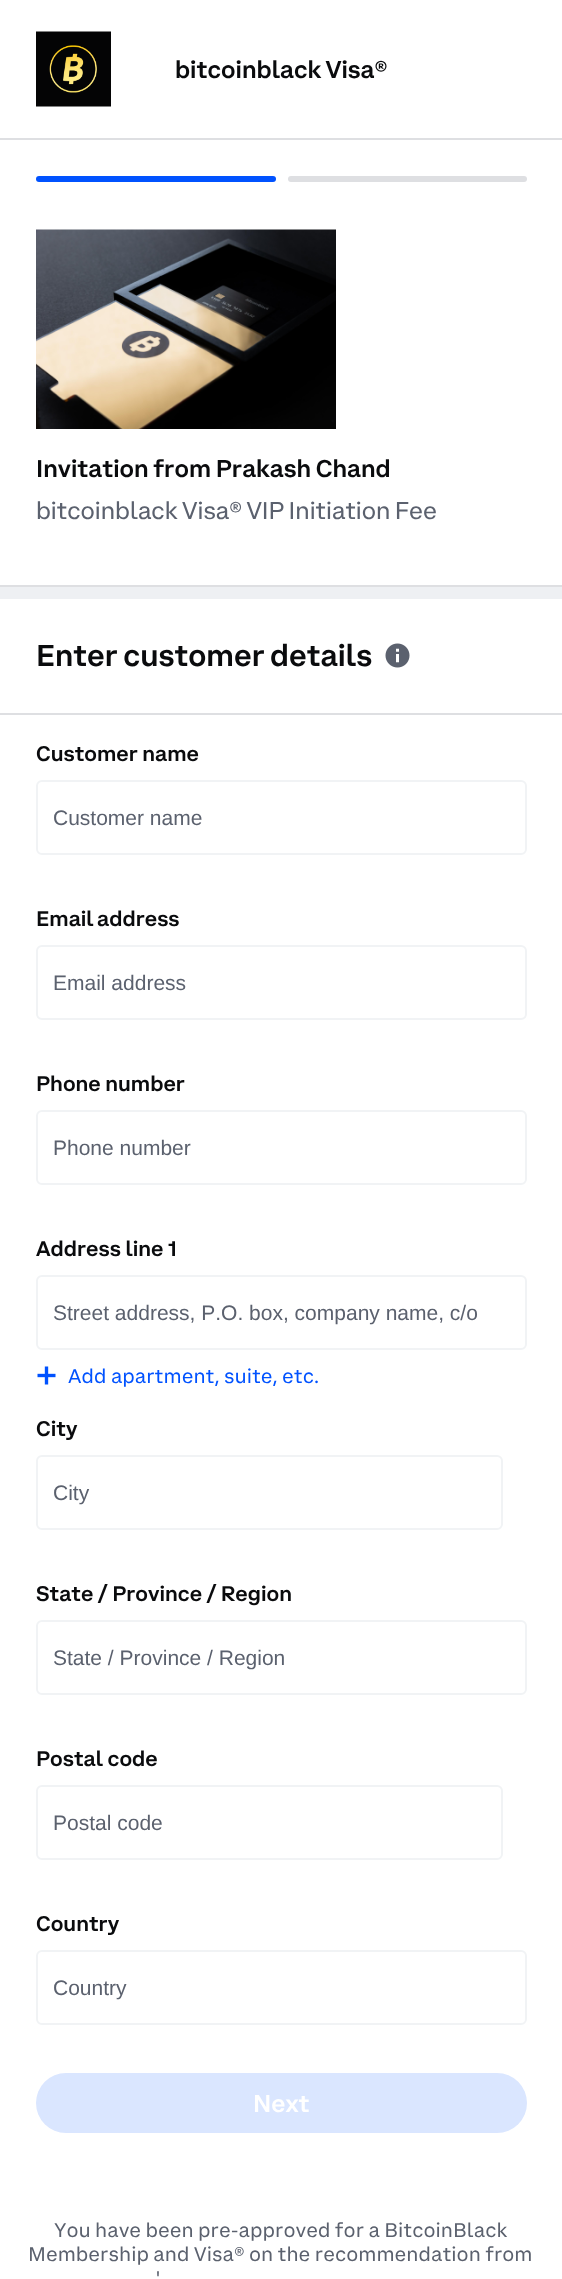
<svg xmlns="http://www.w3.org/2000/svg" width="562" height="2279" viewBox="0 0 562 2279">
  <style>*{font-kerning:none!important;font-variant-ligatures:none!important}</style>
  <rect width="100%" height="100%" fill="#fff"/>
  <path d="M0 138h562v2H0z" fill="#dedfe2"/>
  <image x="36" y="31" width="75" height="76" href="img/1.png"/>
  <rect x="36" y="176" width="240" height="6" rx="3" fill="#0052ff"/>
  <rect x="288" y="176" width="239" height="6" rx="3" fill="#dedfe2"/>
  <path d="M0 585h562v2H0z" fill="#dedfe2"/>
  <image x="36" y="229" width="300" height="200" href="img/2.png"/>
  <path d="M0 587h562v12H0z" fill="#eef0f3"/>
  <path d="M0 713h562v2H0z" fill="#dedfe2"/>
  <image x="385" y="643" width="25" height="25" href="img/3.png"/>
  <rect x="37" y="781" width="489" height="73" rx="5" fill="none" stroke="#f1f3f5" stroke-width="2"/>
  <rect x="37" y="946" width="489" height="73" rx="5" fill="none" stroke="#f1f3f5" stroke-width="2"/>
  <rect x="37" y="1111" width="489" height="73" rx="5" fill="none" stroke="#f1f3f5" stroke-width="2"/>
  <rect x="37" y="1276" width="489" height="73" rx="5" fill="none" stroke="#f1f3f5" stroke-width="2"/>
  <image x="37" y="1366" width="19" height="19" href="img/4.png"/>
  <rect x="37" y="1456" width="465" height="73" rx="5" fill="none" stroke="#f1f3f5" stroke-width="2"/>
  <rect x="37" y="1621" width="489" height="73" rx="5" fill="none" stroke="#f1f3f5" stroke-width="2"/>
  <rect x="37" y="1786" width="465" height="73" rx="5" fill="none" stroke="#f1f3f5" stroke-width="2"/>
  <rect x="37" y="1951" width="489" height="73" rx="5" fill="none" stroke="#f1f3f5" stroke-width="2"/>
  <rect x="36" y="2073" width="491" height="60" rx="30" fill="#dae6ff"/>
  <g font-family="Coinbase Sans" font-size="24" font-weight="500" fill="#0a0b0d">
    <text x="175" y="78" word-spacing="-1">bitcoinblack Visa®</text>
    <text x="36" y="477" word-spacing="-0.5">Invitation from Prakash Chand</text>
  </g>
  <text x="36" y="519" word-spacing="-1" font-family="Coinbase Sans" font-size="24" fill="#5b616e">bitcoinblack Visa® VIP Initiation Fee</text>
  <text x="36" y="666" word-spacing="-1" font-family="Coinbase Sans" font-size="30" font-weight="500" fill="#0a0b0d">Enter customer details</text>
  <text x="36" y="761" font-family="Coinbase Sans" font-size="21" font-weight="500" fill="#0a0b0d">Customer name</text>
  <text x="53" y="825" font-family="Liberation Sans" font-size="21" fill="#5b616e">Customer name</text>
  <text x="36" y="926" word-spacing="-1" font-family="Coinbase Sans" font-size="21" font-weight="500" fill="#0a0b0d">Email address</text>
  <text x="53" y="990" font-family="Liberation Sans" font-size="21" fill="#5b616e">Email address</text>
  <text x="36" y="1091" font-family="Coinbase Sans" font-size="21" font-weight="500" fill="#0a0b0d">Phone number</text>
  <text x="53" y="1155" font-family="Liberation Sans" font-size="21" fill="#5b616e">Phone number</text>
  <text x="36" y="1256" font-family="Coinbase Sans" font-size="21" font-weight="500" fill="#0a0b0d">Address line 1</text>
  <text x="53" y="1320" font-family="Liberation Sans" font-size="21" fill="#5b616e">Street address, P.O. box, company name, c/o</text>
  <text x="68" y="1383" word-spacing="-0.25" font-family="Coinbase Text" font-size="19.5" fill="#0052ff">Add apartment, suite, etc.</text>
  <text x="36" y="1436" font-family="Coinbase Sans" font-size="21" font-weight="500" fill="#0a0b0d">City</text>
  <text x="53" y="1500" font-family="Liberation Sans" font-size="21" fill="#5b616e">City</text>
  <text x="36" y="1601" word-spacing="-0.5" font-family="Coinbase Sans" font-size="21" font-weight="500" fill="#0a0b0d">State / Province / Region</text>
  <text x="53" y="1665" font-family="Liberation Sans" font-size="21" fill="#5b616e">State / Province / Region</text>
  <text x="36" y="1766" font-family="Coinbase Sans" font-size="21" font-weight="500" fill="#0a0b0d">Postal code</text>
  <text x="53" y="1830" font-family="Liberation Sans" font-size="21" fill="#5b616e">Postal code</text>
  <text x="36" y="1931" font-family="Coinbase Sans" font-size="21" font-weight="500" fill="#0a0b0d">Country</text>
  <text x="53" y="1995" font-family="Liberation Sans" font-size="21" fill="#5b616e">Country</text>
  <text x="253" y="2112" font-family="Coinbase Sans" font-size="24" font-weight="500" fill="#fff">Next</text>
  <g font-family="Coinbase Text" font-size="19.5" fill="#5b616e">
    <text x="54" y="2237" word-spacing="-0.25">You have been pre-approved for a BitcoinBlack</text>
    <text x="28" y="2261" word-spacing="-0.25">Membership and Visa® on the recommendation from</text>
    <text x="156" y="2285" word-spacing="-1">'</text>
  </g>
</svg>
